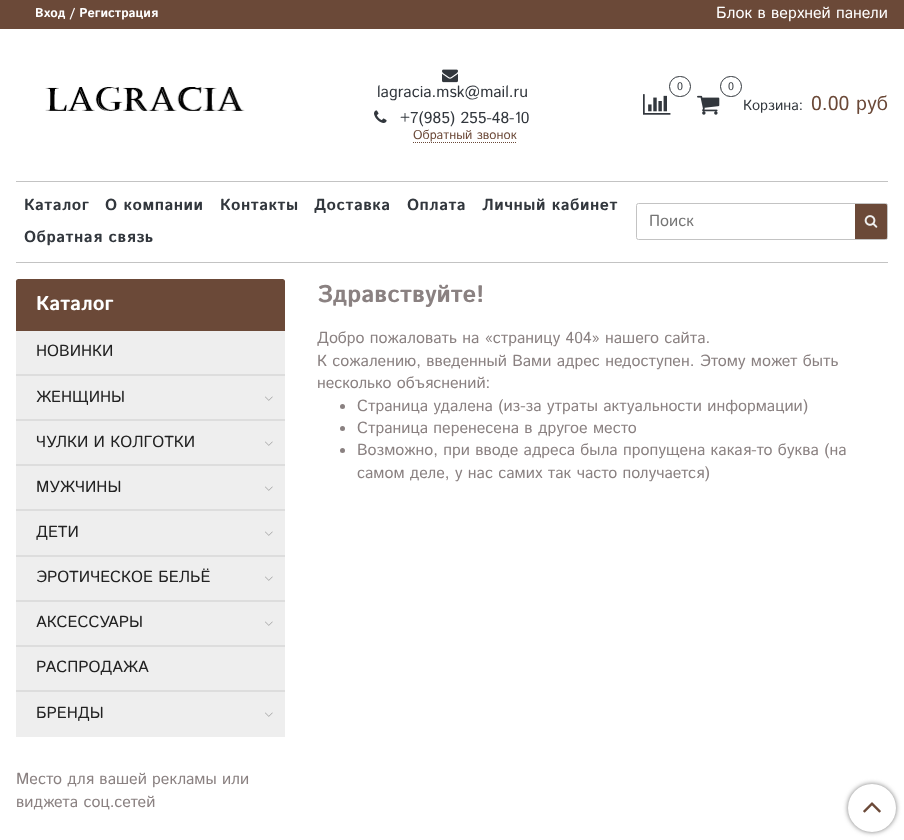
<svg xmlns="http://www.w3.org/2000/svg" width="904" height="840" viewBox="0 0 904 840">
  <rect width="100%" height="100%" fill="#fff"/>
  <path d="M0 0h904v29H0z" fill="#6b4938"/>
  <image x="45" y="87" width="200" height="24" href="img/1.png"/>
  <image x="442" y="69" width="16" height="14" href="img/2.png"/>
  <image x="374" y="110" width="13" height="13" href="img/3.png"/>
  <path d="M413 142.5H517" fill="none" stroke="#6b4938" stroke-dasharray="1 1"/>
  <image x="643" y="94" width="28" height="21" href="img/4.png"/>
  <rect x="669.5" y="76.5" width="21" height="20" rx="10" fill="none" stroke="#32373d"/>
  <rect x="720.5" y="76.5" width="21" height="20" rx="10" fill="none" stroke="#32373d"/>
  <image x="697" y="95" width="23" height="20" href="img/5.png"/>
  <path d="M16 181h872v1H16z" fill="#c3c3c3"/>
  <path d="M16 262h872v1H16z" fill="#c3c3c3"/>
  <rect x="636.5" y="203.5" width="251" height="36" rx="2" fill="none" stroke="#c3c3c3"/>
  <path d="M855 204H885.5C886.5 204 887 204.5 887 205.5V237.5C887 238.5 886.5 239 885.5 239H855Z" fill="#6b4938"/>
  <image x="864" y="215" width="14" height="13" href="img/6.png"/>
  <path d="M18.5 279H282.5C284 279 285 280 285 281.5V331H16V281.5C16 280 17 279 18.5 279Z" fill="#6b4938"/>
  <path d="M16 331h269v406H16z" fill="#eee"/>
  <path d="M16 374h269v2H16z" fill="#ddd"/>
  <path d="M16 419h269v2H16z" fill="#ddd"/>
  <image x="265" y="396" width="8" height="5" href="img/7.png"/>
  <path d="M16 464h269v2H16z" fill="#ddd"/>
  <image x="265" y="441" width="8" height="5" href="img/7.png"/>
  <path d="M16 509h269v2H16z" fill="#ddd"/>
  <image x="265" y="486" width="8" height="5" href="img/7.png"/>
  <path d="M16 555h269v2H16z" fill="#ddd"/>
  <image x="265" y="531" width="8" height="5" href="img/7.png"/>
  <path d="M16 600h269v2H16z" fill="#ddd"/>
  <image x="265" y="576" width="8" height="5" href="img/7.png"/>
  <path d="M16 645h269v2H16z" fill="#ddd"/>
  <image x="265" y="621" width="8" height="5" href="img/7.png"/>
  <path d="M16 690h269v2H16z" fill="#ddd"/>
  <image x="265" y="712" width="8" height="5" href="img/7.png"/>
  <circle cx="342.5" cy="406.5" r="2.5" fill="#8a8181"/>
  <circle cx="342.5" cy="428.5" r="2.5" fill="#8a8181"/>
  <circle cx="342.5" cy="450.5" r="2.5" fill="#8a8181"/>
  <rect x="848" y="784" width="48" height="48" rx="24" fill="#777" filter="blur(2.5px)"/>
  <circle cx="872" cy="808" r="24" fill="#fff"/>
  <image x="863" y="802" width="18" height="11" href="img/8.png"/>
  <text x="35" y="17" font-family="Istok Web" font-size="12.75" font-weight="bold" fill="#fff">Вход / Регистрация</text>
  <text x="716" y="18" font-family="Istok Web" font-size="16" fill="#fff">Блок в верхней панели</text>
  <g font-family="Istok Web" font-size="16" fill="#32373d">
    <text x="377" y="97">lagracia.msk@mail.ru</text>
    <text x="400" y="123">+7(985) 255-48-10</text>
  </g>
  <text x="413" y="139" font-family="Istok Web" font-size="12.75" fill="#6b4938">Обратный звонок</text>
  <g font-family="Istok Web" font-size="11" fill="#32373d">
    <text x="677" y="90">0</text>
    <text x="728" y="90">0</text>
  </g>
  <text x="743" y="110" font-family="Istok Web" font-size="14.5" fill="#32373d">Корзина:</text>
  <text x="811" y="110" font-family="Istok Web" font-size="20" fill="#6b4938">0.00 руб</text>
  <g font-family="Istok Web" font-size="16" font-weight="bold" letter-spacing="0.5" fill="#32373d">
    <text x="24" y="210">Каталог</text>
    <text x="105" y="210">О компании</text>
    <text x="220" y="210">Контакты</text>
    <text x="314" y="210">Доставка</text>
    <text x="407" y="210">Оплата</text>
    <text x="482" y="210">Личный кабинет</text>
    <text x="24" y="242">Обратная связь</text>
  </g>
  <text x="649" y="226" font-family="Istok Web" font-size="16" fill="#757575">Поиск</text>
  <text x="36" y="310" font-family="Istok Web" font-size="20" font-weight="bold" fill="#fff">Каталог</text>
  <g font-family="Istok Web" font-size="16" fill="#222">
    <text x="36" y="356">НОВИНКИ</text>
    <text x="36" y="402">ЖЕНЩИНЫ</text>
    <text x="36" y="447">ЧУЛКИ И КОЛГОТКИ</text>
    <text x="36" y="492">МУЖЧИНЫ</text>
    <text x="36" y="537">ДЕТИ</text>
    <text x="36" y="582">ЭРОТИЧЕСКОЕ БЕЛЬЁ</text>
    <text x="36" y="627">АКСЕССУАРЫ</text>
    <text x="36" y="672">РАСПРОДАЖА</text>
    <text x="36" y="718">БРЕНДЫ</text>
  </g>
  <g font-family="Istok Web" font-size="16" fill="#8a8181">
    <text x="16" y="784">Место для вашей рекламы или</text>
    <text x="16" y="807">виджета соц.сетей</text>
  </g>
  <text x="317" y="302" font-family="Istok Web" font-size="24" font-weight="bold" fill="#8a8181">Здравствуйте!</text>
  <g font-family="Istok Web" font-size="16" fill="#8a8181">
    <text x="317" y="343">Добро пожаловать на «страницу 404» нашего сайта.</text>
    <text x="317" y="366">К сожалению, введенный Вами адрес недоступен. Этому может быть</text>
    <text x="317" y="388">несколько объяснений:</text>
    <text x="357" y="411">Страница удалена (из-за утраты актуальности информации)</text>
    <text x="357" y="433">Страница перенесена в другое место</text>
    <text x="357" y="455">Возможно, при вводе адреса была пропущена какая-то буква (на</text>
    <text x="357" y="478">самом деле, у нас самих так часто получается)</text>
  </g>
</svg>
